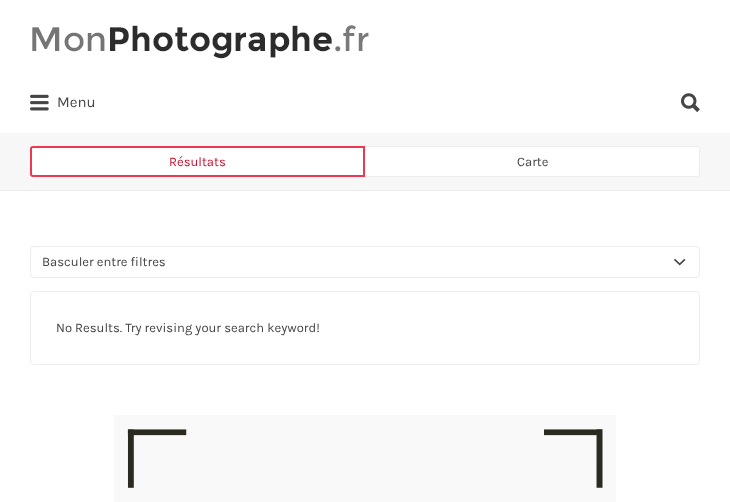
<svg xmlns="http://www.w3.org/2000/svg" width="730" height="502" viewBox="0 0 730 502">
  <rect width="100%" height="100%" fill="#fff"/>
  <image x="32" y="25" width="337" height="34" href="img/1.png"/>
  <image x="30" y="94" width="19" height="17" href="img/2.png"/>
  <image x="681" y="93" width="19" height="19" href="img/3.png"/>
  <path d="M0 190h730v1H0z" fill="#ebebeb"/>
  <path d="M0 133h730v57H0z" fill="#f7f7f7"/>
  <rect x="30.5" y="146.5" width="669" height="30" rx="2.5" fill="#fff" stroke="#ededed"/>
  <path d="M33 147H364V176H33C32 176 31 175 31 174V149C31 148 32 147 33 147Z" fill="none" stroke="#ef3652" stroke-width="2"/>
  <rect x="30.5" y="246.5" width="669" height="31" rx="3.5" fill="none" stroke="#ededed"/>
  <image x="674" y="258" width="12" height="8" href="img/4.png"/>
  <rect x="30.5" y="291.5" width="669" height="73" rx="3.5" fill="none" stroke="#ededed"/>
  <image x="114" y="415" width="502" height="87" href="img/5.png"/>
  <text x="57" y="107" font-family="Karla" font-size="15" fill="#454545">Menu</text>
  <text x="169" y="166" font-family="Karla" font-size="13" fill="#cc132f">Résultats</text>
  <g font-family="Karla" font-size="13" fill="#454545">
    <text x="517" y="166">Carte</text>
    <text x="42" y="266">Basculer entre filtres</text>
    <text x="56" y="332">No Results. Try revising your search keyword!</text>
  </g>
</svg>
